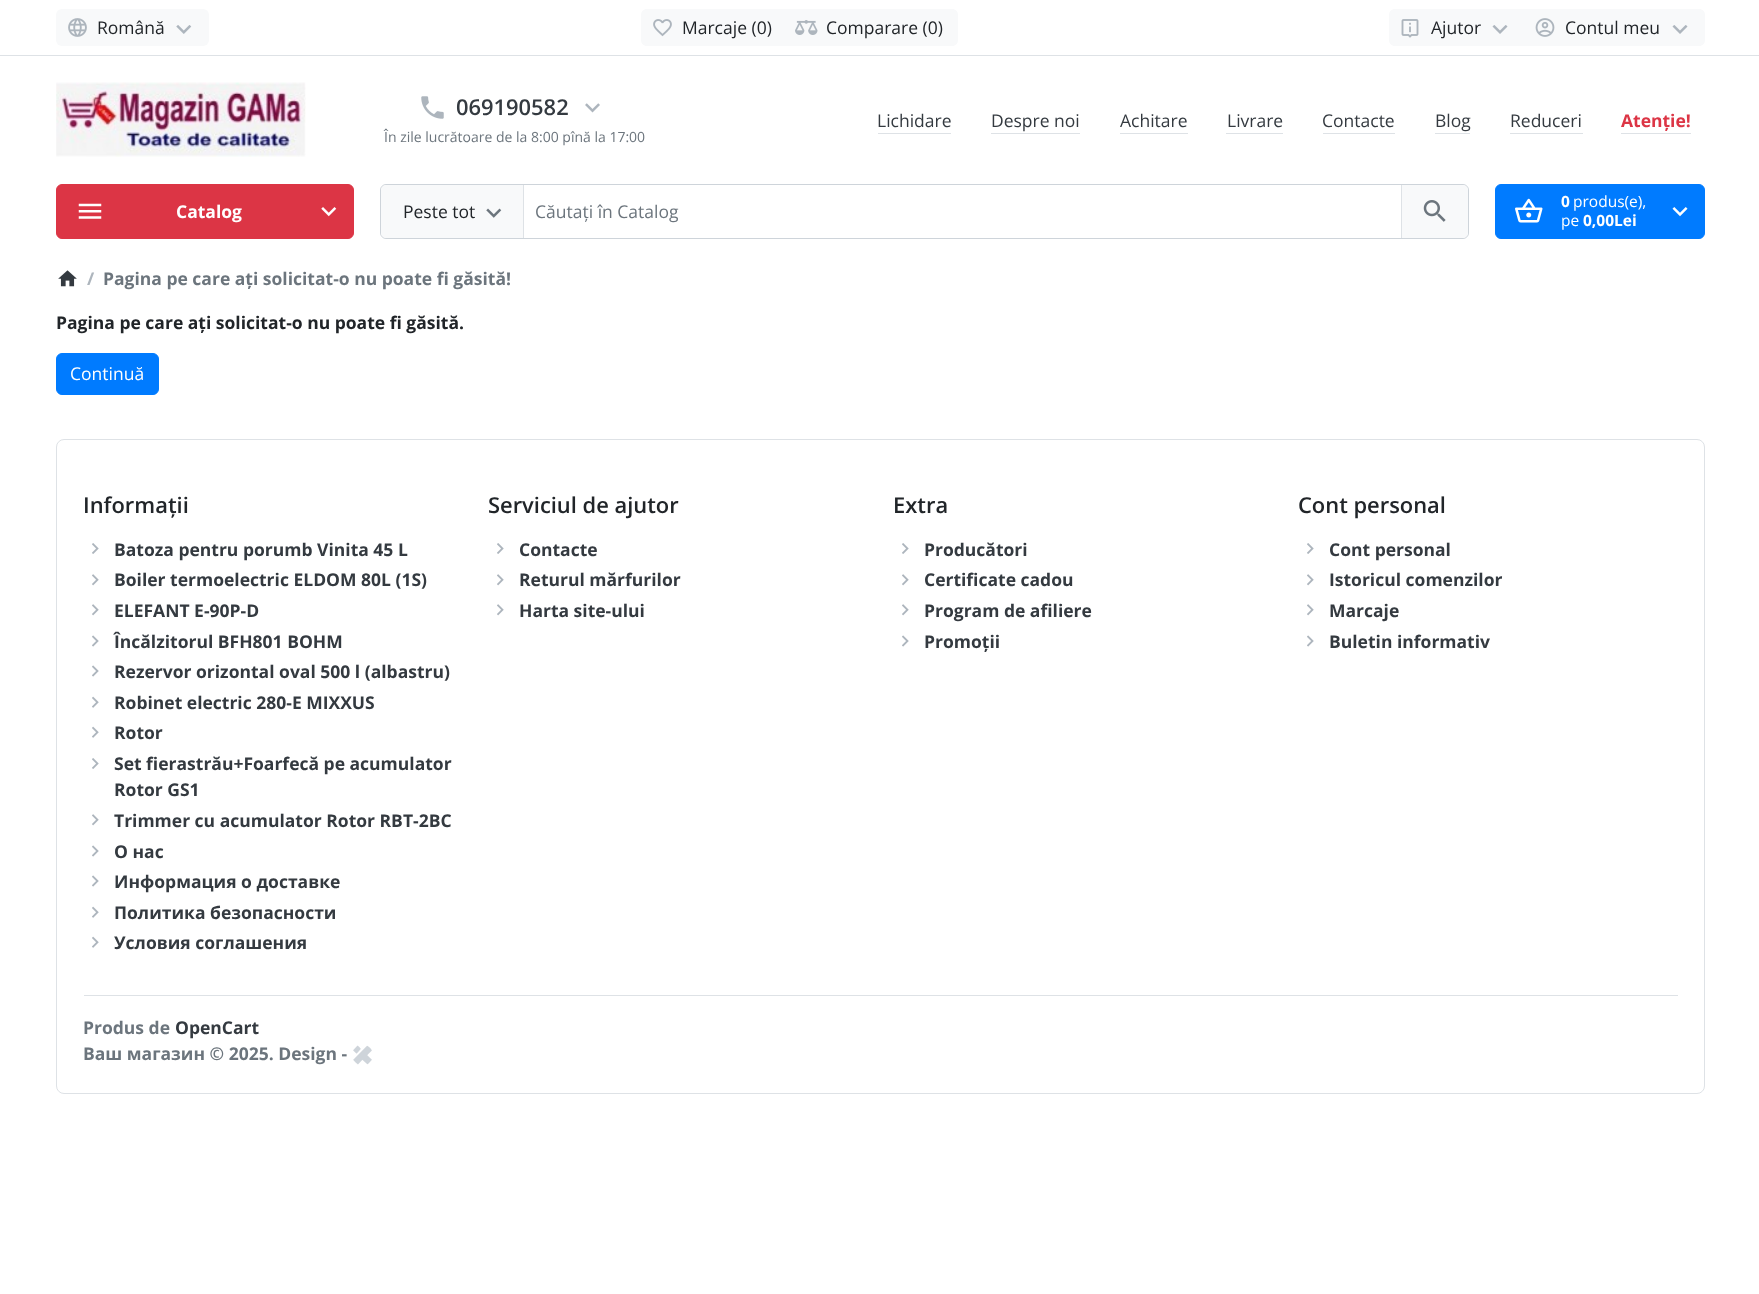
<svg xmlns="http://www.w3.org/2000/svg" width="1759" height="1294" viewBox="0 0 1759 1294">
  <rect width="100%" height="100%" fill="#fff"/>
  <path d="M0 55h1759v1H0z" fill="#dee2e6"/>
  <rect x="56" y="9" width="153" height="37" rx="6" fill="#f8f9fa"/>
  <image x="68" y="18" width="19" height="19" href="img/1.png"/>
  <image x="176" y="25" width="16" height="9" href="img/2.png"/>
  <path d="M647 9H786V46H647C643.5 46 641 43.5 641 40V15C641 11.5 643.5 9 647 9Z" fill="#f8f9fa"/>
  <image x="653" y="19" width="19" height="18" href="img/3.png"/>
  <path d="M785 9H952C955.5 9 958 11.5 958 15V40C958 43.5 955.5 46 952 46H785Z" fill="#f8f9fa"/>
  <image x="795" y="20" width="23" height="15" href="img/4.png"/>
  <path d="M1395 9H1525V46H1395C1391.5 46 1389 43.5 1389 40V15C1389 11.5 1391.5 9 1395 9Z" fill="#f8f9fa"/>
  <image x="1401" y="19" width="18" height="19" href="img/5.png"/>
  <image x="1492" y="25" width="16" height="9" href="img/6.png"/>
  <path d="M1524 9H1699C1702.5 9 1705 11.5 1705 15V40C1705 43.5 1702.5 46 1699 46H1524Z" fill="#f8f9fa"/>
  <image x="1535" y="18" width="20" height="19" href="img/7.png"/>
  <image x="1672" y="25" width="16" height="9" href="img/6.png"/>
  <image x="56" y="82" width="250" height="75" href="img/8.png"/>
  <image x="421" y="96" width="23" height="23" href="img/9.png"/>
  <image x="585" y="103" width="15" height="10" href="img/10.png"/>
  <path d="M878 133h73v1H878z" fill="#dee2e6"/>
  <path d="M991 133h89v1H991z" fill="#dee2e6"/>
  <path d="M1120 133h68v1H1120z" fill="#dee2e6"/>
  <path d="M1226 133h57v1H1226z" fill="#dee2e6"/>
  <path d="M1323 133h72v1H1323z" fill="#dee2e6"/>
  <path d="M1435 133h35v1H1435z" fill="#dee2e6"/>
  <path d="M1510 133h73v1H1510z" fill="#dee2e6"/>
  <path d="M1621 133h70v1H1621z" fill="#dee2e6"/>
  <rect x="56.5" y="184.5" width="297" height="54" rx="5.5" fill="#dc3545" stroke="#dc3545"/>
  <image x="78" y="203" width="24" height="16" href="img/11.png"/>
  <image x="321" y="207" width="16" height="10" href="img/12.png"/>
  <rect x="380.5" y="184.5" width="1088" height="54" rx="5.5" fill="none" stroke="#ced4da"/>
  <path d="M387 185H524V238H387C383.5 238 381 235.5 381 232V191C381 187.5 383.5 185 387 185Z" fill="#f8f9fa"/>
  <path d="M523 185h1v53H523z" fill="#dee2e6"/>
  <image x="486" y="208" width="16" height="10" href="img/13.png"/>
  <path d="M1401 185H1462C1465.5 185 1468 187.5 1468 191V232C1468 235.5 1465.5 238 1462 238H1401Z" fill="#f8f9fa"/>
  <path d="M1401 185h1v53H1401z" fill="#dee2e6"/>
  <image x="1423" y="200" width="23" height="22" href="img/14.png"/>
  <rect x="1495.5" y="184.5" width="209" height="54" rx="5.5" fill="#007bff" stroke="#007bff"/>
  <image x="1515" y="198" width="28" height="25" href="img/15.png"/>
  <image x="1672" y="207" width="16" height="10" href="img/16.png"/>
  <image x="58" y="270" width="19" height="17" href="img/17.png"/>
  <rect x="56.5" y="353.5" width="102" height="41" rx="5.5" fill="#007bff" stroke="#007bff"/>
  <rect x="56.5" y="439.5" width="1648" height="654" rx="7.5" fill="none" stroke="#dee2e6"/>
  <image x="92" y="543" width="7" height="11" href="img/18.png"/>
  <image x="92" y="574" width="7" height="12" href="img/19.png"/>
  <image x="92" y="604" width="7" height="12" href="img/19.png"/>
  <image x="92" y="635" width="7" height="12" href="img/20.png"/>
  <image x="92" y="665" width="7" height="12" href="img/20.png"/>
  <image x="92" y="696" width="7" height="12" href="img/21.png"/>
  <image x="92" y="726" width="7" height="12" href="img/21.png"/>
  <image x="92" y="758" width="7" height="11" href="img/18.png"/>
  <image x="92" y="814" width="7" height="12" href="img/19.png"/>
  <image x="92" y="845" width="7" height="12" href="img/20.png"/>
  <image x="92" y="875" width="7" height="12" href="img/20.png"/>
  <image x="92" y="906" width="7" height="12" href="img/21.png"/>
  <image x="92" y="936" width="7" height="12" href="img/21.png"/>
  <image x="497" y="543" width="7" height="11" href="img/18.png"/>
  <image x="497" y="574" width="7" height="12" href="img/19.png"/>
  <image x="497" y="604" width="7" height="12" href="img/19.png"/>
  <image x="902" y="543" width="7" height="11" href="img/18.png"/>
  <image x="902" y="574" width="7" height="12" href="img/19.png"/>
  <image x="902" y="604" width="7" height="12" href="img/19.png"/>
  <image x="902" y="635" width="7" height="12" href="img/20.png"/>
  <image x="1307" y="543" width="7" height="11" href="img/18.png"/>
  <image x="1307" y="574" width="7" height="12" href="img/19.png"/>
  <image x="1307" y="604" width="7" height="12" href="img/19.png"/>
  <image x="1307" y="635" width="7" height="12" href="img/20.png"/>
  <path d="M84 995h1594v1H84z" fill="#dee2e6"/>
  <image x="353" y="1045" width="19" height="20" href="img/22.png"/>
  <g font-family="Open Sans" font-size="17.5" fill="#212529">
    <text x="97" y="34">Română</text>
    <text x="682" y="34">Marcaje (0)</text>
    <text x="826" y="34">Comparare (0)</text>
    <text x="1431" y="34">Ajutor</text>
    <text x="1565" y="34">Contul meu</text>
  </g>
  <text x="456" y="115" font-family="Open Sans" font-size="21.9" font-weight="600" fill="#343a40">069190582</text>
  <text x="384" y="142" font-family="Open Sans" font-size="14" fill="#6c757d">În zile lucrătoare de la 8:00 pînă la 17:00</text>
  <g font-family="Open Sans" font-size="17.5" fill="#343a40">
    <text x="877" y="127">Lichidare</text>
    <text x="991" y="127">Despre noi</text>
    <text x="1120" y="127">Achitare</text>
    <text x="1227" y="127">Livrare</text>
    <text x="1322" y="127">Contacte</text>
    <text x="1435" y="127">Blog</text>
    <text x="1510" y="127">Reduceri</text>
  </g>
  <text x="1621" y="127" font-family="Open Sans" font-size="17.5" font-weight="bold" fill="#dc3545">Atenție!</text>
  <text x="176" y="218" font-family="Open Sans" font-size="17.5" font-weight="bold" fill="#fff">Catalog</text>
  <text x="403" y="218" font-family="Open Sans" font-size="17.5" fill="#212529">Peste tot</text>
  <text x="535" y="218" font-family="Open Sans" font-size="17.5" fill="#6c757d">Căutați în Catalog</text>
  <text x="1561" y="207" font-family="Open Sans" font-size="15.5" font-weight="bold" fill="#fff">0</text>
  <g font-family="Open Sans" font-size="15.5" fill="#fff">
    <text x="1573" y="207">produs(e),</text>
    <text x="1561" y="226">pe</text>
  </g>
  <text x="1583" y="226" font-family="Open Sans" font-size="15.5" font-weight="bold" fill="#fff">0,00Lei</text>
  <text x="87" y="285" font-family="Open Sans" font-size="17.5" font-weight="bold" fill="#adb5bd">/</text>
  <text x="103" y="285" font-family="Open Sans" font-size="17.5" font-weight="bold" fill="#6c757d">Pagina pe care ați solicitat-o nu poate fi găsită!</text>
  <text x="56" y="329" font-family="Open Sans" font-size="17.5" font-weight="bold" fill="#212529">Pagina pe care ați solicitat-o nu poate fi găsită.</text>
  <text x="70" y="380" font-family="Open Sans" font-size="17.5" fill="#fff">Continuă</text>
  <text x="83" y="513" font-family="Open Sans" font-size="21.9" font-weight="600" fill="#212529">Informații</text>
  <g font-family="Open Sans" font-size="17.5" font-weight="bold" fill="#343a40">
    <text x="114" y="556">Batoza pentru porumb Vinita 45 L</text>
    <text x="114" y="586">Boiler termoelectric ELDOM 80L (1S)</text>
    <text x="114" y="617">ELEFANT E-90P-D</text>
    <text x="114" y="648">Încălzitorul BFH801 BOHM</text>
    <text x="114" y="678">Rezervor orizontal oval 500 l (albastru)</text>
    <text x="114" y="709">Robinet electric 280-E MIXXUS</text>
    <text x="114" y="739">Rotor</text>
    <text x="114" y="770">Set fierastrău+Foarfecă pe acumulator</text>
    <text x="114" y="796">Rotor GS1</text>
    <text x="114" y="827">Trimmer cu acumulator Rotor RBT-2BC</text>
    <text x="114" y="858">О нас</text>
    <text x="114" y="888">Информация о доставке</text>
    <text x="114" y="919">Политика безопасности</text>
    <text x="114" y="949">Условия соглашения</text>
  </g>
  <text x="488" y="513" font-family="Open Sans" font-size="21.9" font-weight="600" fill="#212529">Serviciul de ajutor</text>
  <g font-family="Open Sans" font-size="17.5" font-weight="bold" fill="#343a40">
    <text x="519" y="556">Contacte</text>
    <text x="519" y="586">Returul mărfurilor</text>
    <text x="519" y="617">Harta site-ului</text>
  </g>
  <text x="893" y="513" font-family="Open Sans" font-size="21.9" font-weight="600" fill="#212529">Extra</text>
  <g font-family="Open Sans" font-size="17.5" font-weight="bold" fill="#343a40">
    <text x="924" y="556">Producători</text>
    <text x="924" y="586">Certificate cadou</text>
    <text x="924" y="617">Program de afiliere</text>
    <text x="924" y="648">Promoții</text>
  </g>
  <text x="1298" y="513" font-family="Open Sans" font-size="21.9" font-weight="600" fill="#212529">Cont personal</text>
  <g font-family="Open Sans" font-size="17.5" font-weight="bold" fill="#343a40">
    <text x="1329" y="556">Cont personal</text>
    <text x="1329" y="586">Istoricul comenzilor</text>
    <text x="1329" y="617">Marcaje</text>
    <text x="1329" y="648">Buletin informativ</text>
  </g>
  <text x="83" y="1034" font-family="Open Sans" font-size="17.5" font-weight="bold" fill="#6c757d">Produs de</text>
  <text x="175" y="1034" font-family="Open Sans" font-size="17.5" font-weight="bold" fill="#343a40">OpenCart</text>
  <text x="83" y="1060" font-family="Open Sans" font-size="17.5" font-weight="bold" fill="#6c757d">Ваш магазин © 2025. Design -</text>
</svg>
